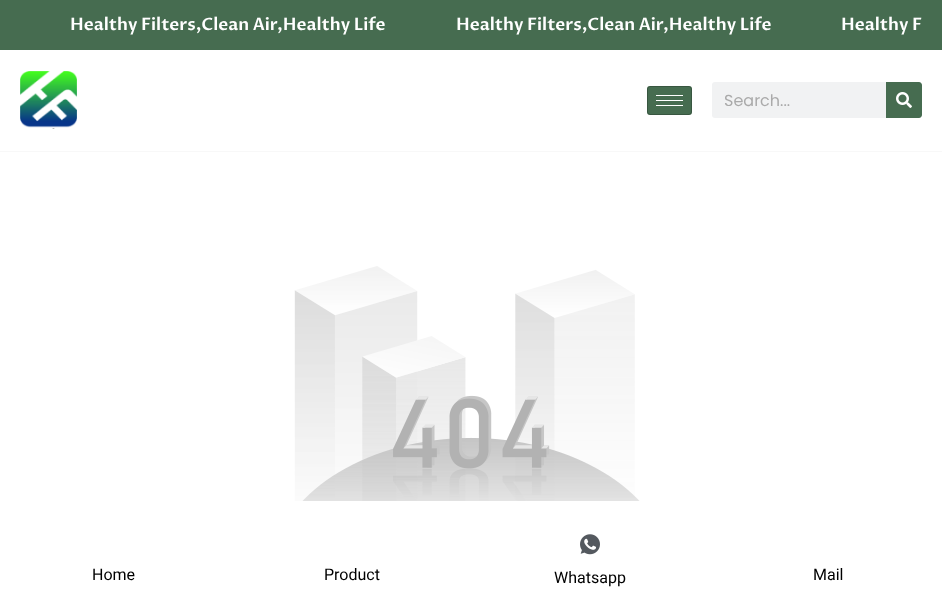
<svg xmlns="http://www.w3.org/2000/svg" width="942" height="600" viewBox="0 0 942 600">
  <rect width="100%" height="100%" fill="#fff"/>
  <path d="M0 0h942v50H0z" fill="#466c50"/>
  <path d="M0 151h942v1H0z" fill="#f8f8f8"/>
  <image x="20" y="71" width="57" height="58" href="img/1.png"/>
  <rect x="647" y="86" width="45" height="29" rx="3" fill="#466c50"/>
  <rect x="647.5" y="86.5" width="44" height="28" rx="2.5" fill="none" stroke="#00000033"/>
  <path d="M656 95h27v1H656z" fill="#fff"/>
  <path d="M656 100h27v1H656z" fill="#fff"/>
  <path d="M656 105h27v1H656z" fill="#fff"/>
  <rect x="712" y="82" width="210" height="36" rx="3" fill="#f1f2f3"/>
  <path d="M886 82H919C920.5 82 922 83.5 922 85V115C922 116.5 920.5 118 919 118H886Z" fill="#466c50"/>
  <image x="896" y="92" width="16" height="16" href="img/2.png"/>
  <image x="294" y="266" width="346" height="235" href="img/3.png"/>
  <image x="580" y="534" width="20" height="21" href="img/4.png"/>
  <g font-family="Proza Libre" font-size="17" font-weight="600" fill="#fff">
    <text x="70" y="30">Healthy Filters,Clean Air,Healthy Life</text>
    <text x="456" y="30">Healthy Filters,Clean Air,Healthy Life</text>
    <text x="841" y="30">Healthy F</text>
  </g>
  <text x="724" y="106" font-family="Poppins" font-size="16" fill="#aaa">Search...</text>
  <g font-family="Roboto" font-size="16" fill="#000">
    <text x="92" y="580">Home</text>
    <text x="324" y="580">Product</text>
    <text x="554" y="583">Whatsapp</text>
    <text x="813" y="580">Mail</text>
  </g>
</svg>
